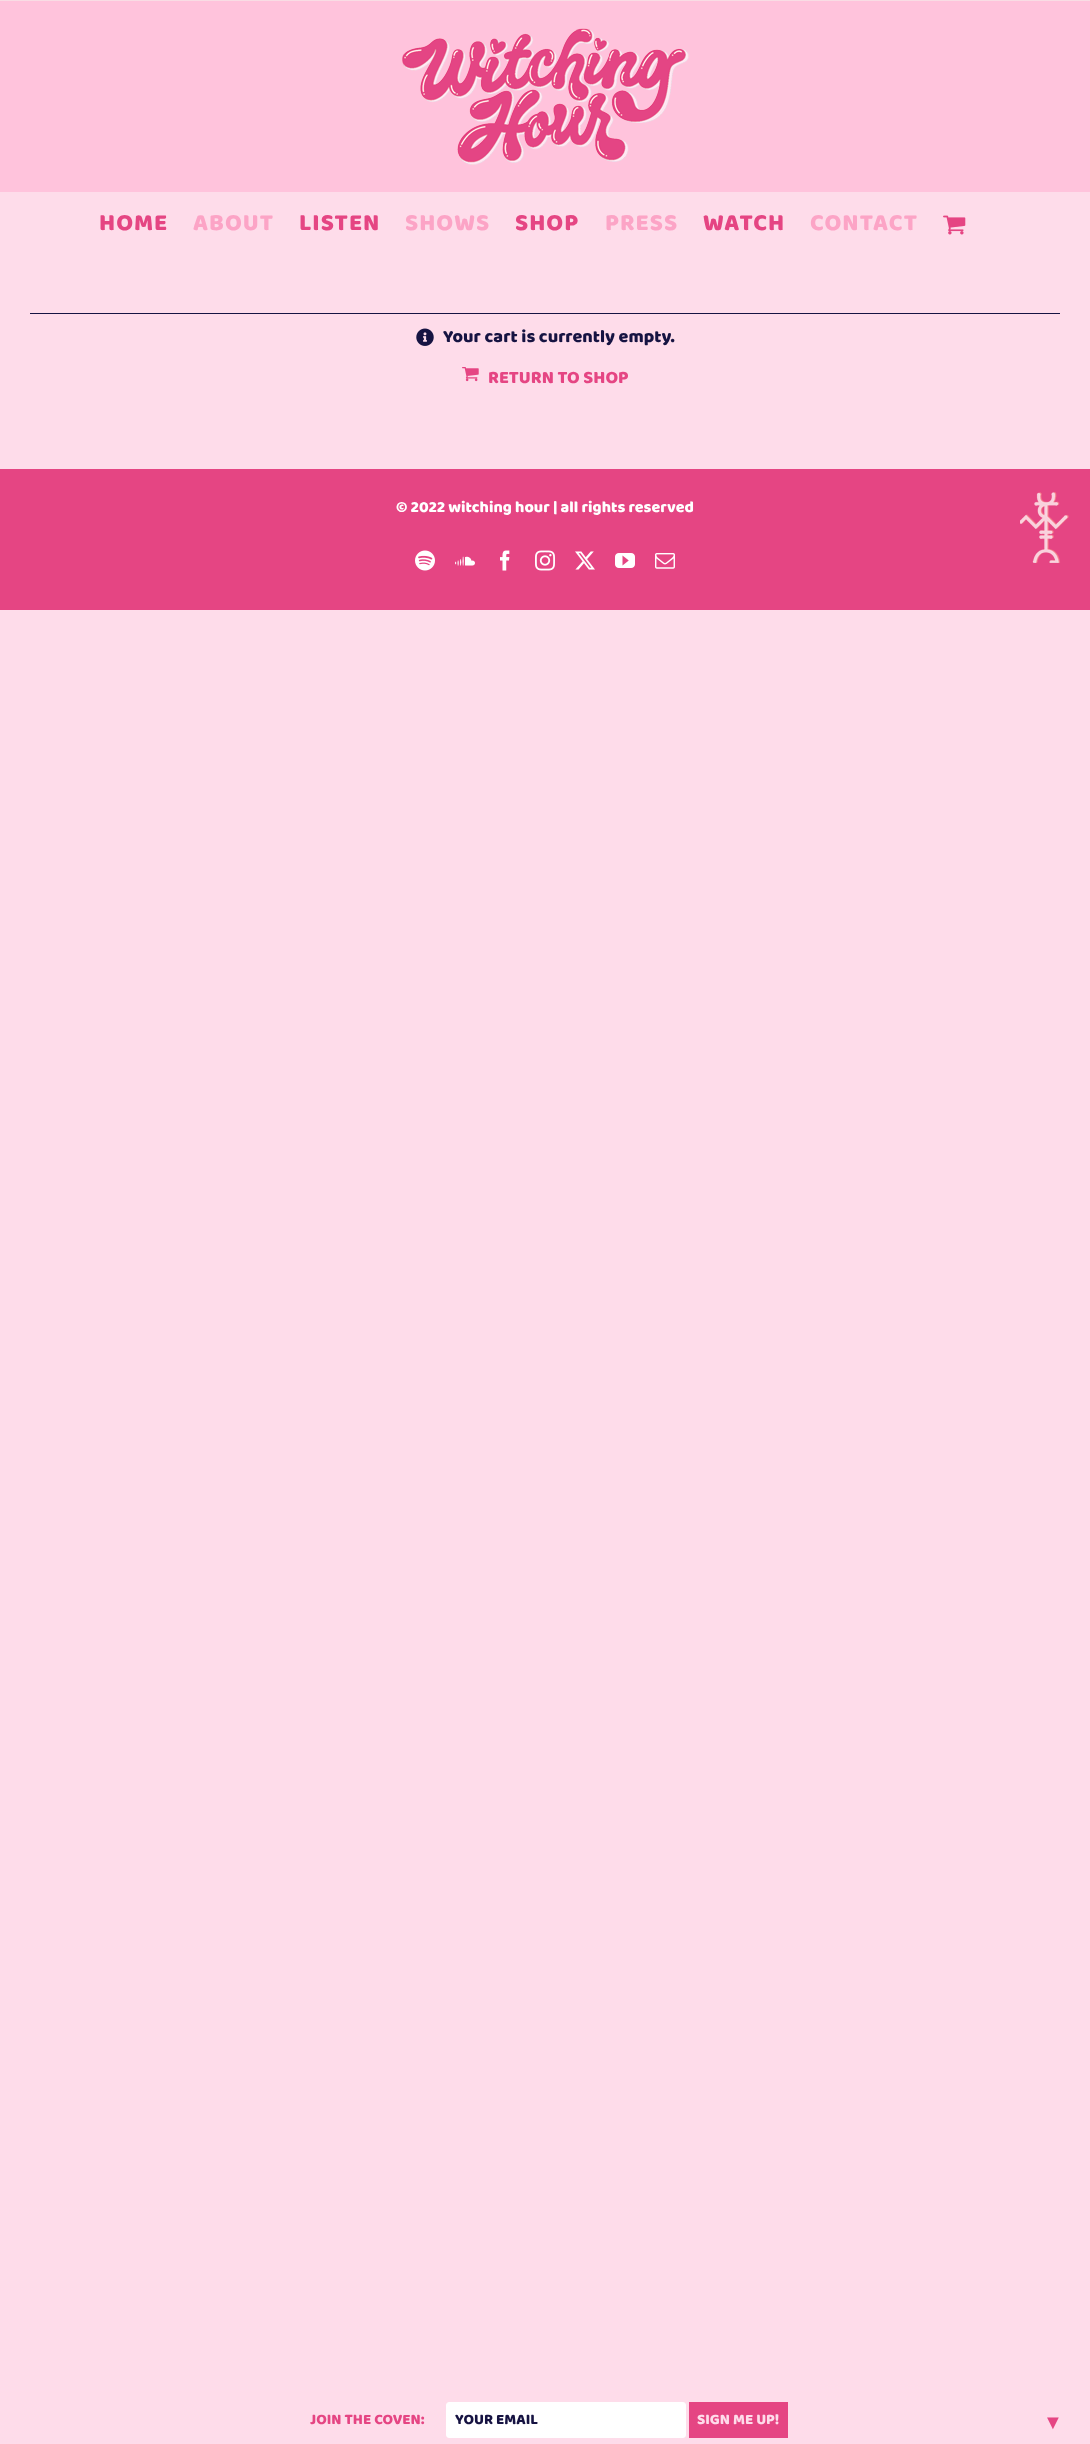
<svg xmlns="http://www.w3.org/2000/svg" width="1090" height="2444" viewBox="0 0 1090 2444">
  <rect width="100%" height="100%" fill="#fedcea"/>
  <path d="M0 0h1090v1H0z" fill="#f9dce4"/>
  <path d="M0 1h1090v191H0z" fill="#ffc3dc"/>
  <image x="402" y="28" width="287" height="137" href="img/1.png"/>
  <image x="943" y="215" width="23" height="20" href="img/2.png"/>
  <path d="M30 313h1030v1H30z" fill="#161342"/>
  <image x="416" y="328" width="18" height="18" href="img/3.png"/>
  <image x="462" y="367" width="17" height="15" href="img/4.png"/>
  <path d="M0 469h1090v141H0z" fill="#e54583"/>
  <image x="1020" y="492" width="49" height="71" href="img/5.png"/>
  <image x="415" y="550" width="20" height="21" href="img/6.png"/>
  <image x="455" y="556" width="20" height="10" href="img/7.png"/>
  <image x="500" y="550" width="10" height="21" href="img/8.png"/>
  <image x="535" y="550" width="20" height="21" href="img/9.png"/>
  <image x="575" y="551" width="20" height="19" href="img/10.png"/>
  <image x="615" y="553" width="20" height="15" href="img/11.png"/>
  <image x="655" y="553" width="20" height="16" href="img/12.png"/>
  <rect x="446.5" y="2402.5" width="239" height="35" rx="2.5" fill="#fff" stroke="#fff"/>
  <path d="M689 2402h99v36H689z" fill="#e54583"/>
  <text x="99" y="230" font-family="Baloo" font-size="24" letter-spacing="1" fill="#e54583">HOME</text>
  <text x="193" y="230" font-family="Baloo" font-size="24" letter-spacing="1" fill="#fca4c6">ABOUT</text>
  <text x="299" y="230" font-family="Baloo" font-size="24" letter-spacing="1" fill="#e54583">LISTEN</text>
  <text x="405" y="230" font-family="Baloo" font-size="24" letter-spacing="1" fill="#fca4c6">SHOWS</text>
  <text x="515" y="230" font-family="Baloo" font-size="24" letter-spacing="1" fill="#e54583">SHOP</text>
  <text x="605" y="230" font-family="Baloo" font-size="24" letter-spacing="1" fill="#fca4c6">PRESS</text>
  <text x="703" y="230" font-family="Baloo" font-size="24" letter-spacing="1" fill="#e54583">WATCH</text>
  <text x="810" y="230" font-family="Baloo" font-size="24" letter-spacing="1" fill="#fca4c6">CONTACT</text>
  <text x="443" y="342" font-family="Baloo" font-size="18" fill="#161342">Your cart is currently empty.</text>
  <text x="488" y="383" font-family="Baloo" font-size="18" fill="#e54583">RETURN TO SHOP</text>
  <text x="396" y="512" font-family="Baloo" font-size="16" fill="#fff">© 2022 witching hour | all rights reserved</text>
  <text x="310" y="2424" font-family="Baloo" font-size="15" fill="#e54583">JOIN THE COVEN:</text>
  <text x="455" y="2424" font-family="Baloo" font-size="15" fill="#161342">YOUR EMAIL</text>
  <text x="697" y="2424" font-family="Baloo" font-size="15" fill="#fedcea">SIGN ME UP!</text>
  <text x="1043" y="2429" font-family="Liberation Serif" font-size="20" fill="#e54583">▼</text>
</svg>
